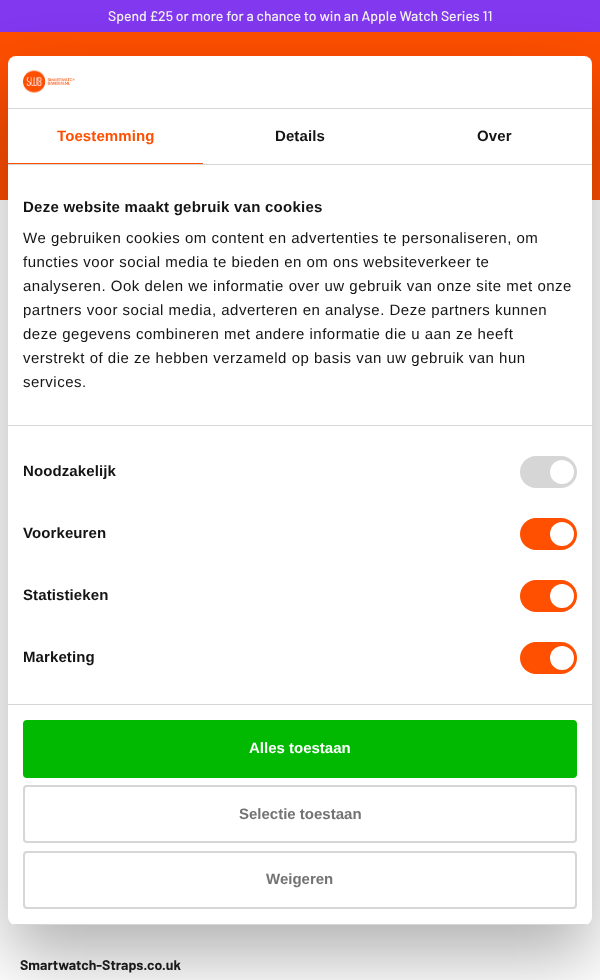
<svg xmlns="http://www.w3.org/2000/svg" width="600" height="980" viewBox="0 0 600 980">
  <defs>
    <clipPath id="clip1"><rect x="8" y="56" width="584" height="869" rx="8"/></clipPath>
  </defs>
  <rect width="100%" height="100%" fill="#ff4f01"/>
  <path d="M0 0h600v32H0z" fill="#8238ee"/>
  <path d="M0 200h600v780H0z" fill="#fff"/>
  <rect x="8" y="88" width="584" height="869" rx="8" fill="#0000004d" filter="blur(34px)"/>
  <rect x="8" y="56" width="584" height="869" rx="8" fill="#fff"/>
  <path d="M8 108h584v1H8z" fill="#d6d6d6"/>
  <image x="23" y="70" width="52" height="23" href="img/1.png"/>
  <path d="M8 164h584v1H8z" fill="#d6d6d6"/>
  <path d="M8 163h195v1H8z" fill="#fe5000"/>
  <path d="M8 425h584v1H8z" fill="#d6d6d6"/>
  <path d="M8 704h584v1H8z" fill="#d6d6d6"/>
  <rect x="520" y="456" width="57" height="32" rx="16" fill="#d6d6d6"/>
  <circle cx="562" cy="472" r="12" fill="#fff"/>
  <rect x="520" y="518" width="57" height="32" rx="16" fill="#fe5000"/>
  <circle cx="562" cy="534" r="12" fill="#fff"/>
  <rect x="520" y="580" width="57" height="32" rx="16" fill="#fe5000"/>
  <circle cx="562" cy="596" r="12" fill="#fff"/>
  <rect x="520" y="642" width="57" height="32" rx="16" fill="#fe5000"/>
  <circle cx="562" cy="658" r="12" fill="#fff"/>
  <g clip-path="url(#clip1)">
    <path d="M8 924h584v1H8z" fill="#d6d6d6"/>
  </g>
  <rect x="24" y="721" width="552" height="56" rx="3" fill="#00b900" stroke="#00b900" stroke-width="2"/>
  <rect x="24" y="786" width="552" height="56" rx="3" fill="none" stroke="#d6d6d6" stroke-width="2"/>
  <rect x="24" y="852" width="552" height="56" rx="3" fill="none" stroke="#d6d6d6" stroke-width="2"/>
  <text x="108" y="21" font-family="Barlow" font-size="14" font-weight="500" fill="#f0f0f0">Spend £25 or more for a chance to win an Apple Watch Series 11</text>
  <text x="57" y="141" font-family="Liberation Sans" font-size="15" font-weight="bold" letter-spacing="0.1" fill="#fe5000">Toestemming</text>
  <g font-family="Liberation Sans" font-size="15" font-weight="bold" letter-spacing="0.1" fill="#141414">
    <text x="275" y="141">Details</text>
    <text x="477" y="141">Over</text>
  </g>
  <text x="23" y="212" font-family="Liberation Sans" font-size="15" font-weight="bold" letter-spacing="0.25" fill="#141414">Deze website maakt gebruik van cookies</text>
  <g font-family="Liberation Sans" font-size="15" letter-spacing="0.5" fill="#141414">
    <text x="23" y="243">We gebruiken cookies om content en advertenties te personaliseren, om</text>
    <text x="23" y="267">functies voor social media te bieden en om ons websiteverkeer te</text>
    <text x="23" y="291">analyseren. Ook delen we informatie over uw gebruik van onze site met onze</text>
    <text x="23" y="315">partners voor social media, adverteren en analyse. Deze partners kunnen</text>
    <text x="23" y="339">deze gegevens combineren met andere informatie die u aan ze heeft</text>
    <text x="23" y="363">verstrekt of die ze hebben verzameld op basis van uw gebruik van hun</text>
    <text x="23" y="387">services.</text>
  </g>
  <g font-family="Liberation Sans" font-size="15" font-weight="bold" letter-spacing="0.1" fill="#141414">
    <text x="23" y="476">Noodzakelijk</text>
    <text x="23" y="538">Voorkeuren</text>
    <text x="23" y="600">Statistieken</text>
    <text x="23" y="662">Marketing</text>
  </g>
  <text x="249" y="753" font-family="Liberation Sans" font-size="15" font-weight="bold" fill="#fff">Alles toestaan</text>
  <g font-family="Liberation Sans" font-size="15" font-weight="bold" fill="#737373">
    <text x="239" y="819">Selectie toestaan</text>
    <text x="266" y="884">Weigeren</text>
  </g>
  <text x="20" y="970" font-family="Barlow" font-size="14" font-weight="bold" fill="#1a1a1a">Smartwatch-Straps.co.uk</text>
</svg>
